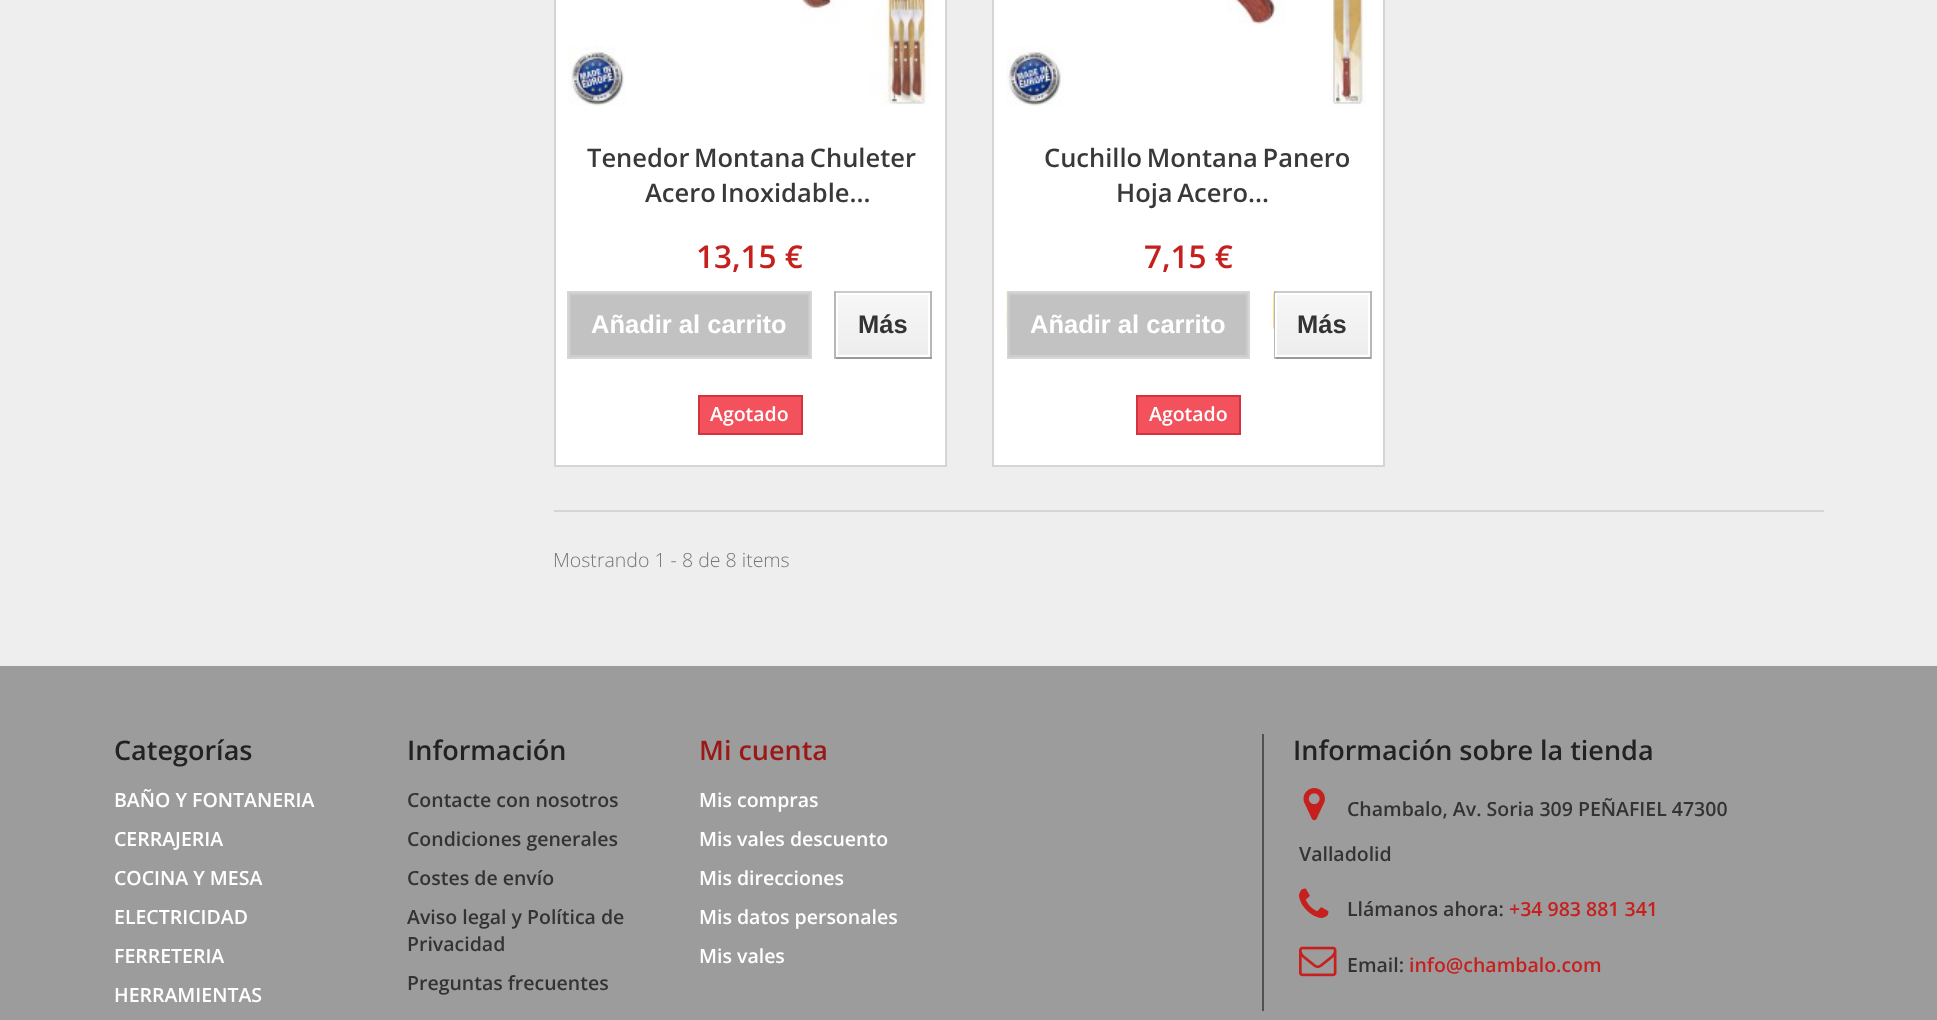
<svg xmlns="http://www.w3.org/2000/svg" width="1937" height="1020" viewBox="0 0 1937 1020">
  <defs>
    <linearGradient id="g1" gradientUnits="userSpaceOnUse" x1="883" y1="294" x2="883" y2="356"><stop offset="0" stop-color="#f7f7f7"/><stop offset="1" stop-color="#ededed"/></linearGradient>
    <linearGradient id="g2" gradientUnits="userSpaceOnUse" x1="1322" y1="294" x2="1322" y2="356"><stop offset="0" stop-color="#f7f7f7"/><stop offset="1" stop-color="#ededed"/></linearGradient>
  </defs>
  <rect width="100%" height="100%" fill="#eee"/>
  <path d="M555 -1h391v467H555z" fill="#fff" stroke="#d6d4d4" stroke-width="2"/>
  <image x="568" y="0" width="364" height="106" href="img/1.png"/>
  <path d="M568 292h243v66H568z" fill="none" stroke="#d6d6d6" stroke-width="2"/>
  <path d="M570 294h239v62H570z" fill="#c2c2c2" stroke="#ccc" stroke-width="2"/>
  <path d="M834 291h98v2H834z" fill="#cacaca"/>
  <path d="M930 291h2v68H930z" fill="#b7b7b7"/>
  <path d="M834 357h98v2H834z" fill="#9a9a9a"/>
  <path d="M834 291h2v68H834z" fill="#b7b7b7"/>
  <path d="M838 295h90v60H838z" fill="url(#g1)"/>
  <path d="M699 396h103v38H699z" fill="#f3515c" stroke="#d4323d" stroke-width="2"/>
  <path d="M993 -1h391v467H993z" fill="#fff" stroke="#d6d4d4" stroke-width="2"/>
  <image x="1006" y="0" width="360" height="108" href="img/2.png"/>
  <image x="1006" y="292" width="1" height="37" href="img/3.png"/>
  <path d="M1008 292h241v66H1008z" fill="none" stroke="#d6d6d6" stroke-width="2"/>
  <path d="M1009 294h238v62H1009z" fill="#c2c2c2" stroke="#ccc" stroke-width="2"/>
  <image x="1273" y="292" width="1" height="37" href="img/4.png"/>
  <path d="M1274 291h97v2H1274z" fill="#cacaca"/>
  <path d="M1370 291h2v68H1370z" fill="#b7b7b7"/>
  <path d="M1274 357h97v2H1274z" fill="#9a9a9a"/>
  <path d="M1274 291h2v68H1274z" fill="#b7b7b7"/>
  <path d="M1277 295h91v60H1277z" fill="url(#g2)"/>
  <path d="M1276 294h93v62H1276z" fill="none" stroke="#fff" stroke-width="2"/>
  <path d="M1137 396h103v38H1137z" fill="#f3515c" stroke="#d4323d" stroke-width="2"/>
  <path d="M554 510h1270v2H554z" fill="#d6d4d4"/>
  <path d="M0 666h1937v354H0z" fill="#9d9c9d"/>
  <path d="M1262 734h2v277H1262z" fill="#515151"/>
  <image x="1303" y="788" width="22" height="33" href="img/5.png"/>
  <image x="1299" y="888" width="30" height="30" href="img/6.png"/>
  <image x="1299" y="946" width="38" height="31" href="img/7.png"/>
  <g font-family="Open Sans" font-size="25.5" font-weight="600" fill="#3a3939">
    <text x="587" y="167" word-spacing="-2">Tenedor Montana Chuleter</text>
    <text x="645" y="202" word-spacing="-2">Acero Inoxidable...</text>
  </g>
  <text x="696" y="268" font-family="Open Sans" font-size="31.5" font-weight="600" fill="#c6201e">13,15 €</text>
  <text x="591" y="333" font-family="Liberation Sans" font-size="25.5" font-weight="bold" fill="#fff">Añadir al carrito</text>
  <text x="858" y="333" font-family="Liberation Sans" font-size="25.5" font-weight="bold" fill="#333">Más</text>
  <text x="710" y="421" font-family="Open Sans" font-size="19.5" font-weight="600" fill="#fff">Agotado</text>
  <g font-family="Open Sans" font-size="25.5" font-weight="600" fill="#3a3939">
    <text x="1044" y="167" word-spacing="-2">Cuchillo Montana Panero</text>
    <text x="1116" y="202" word-spacing="-2">Hoja Acero...</text>
  </g>
  <text x="1144" y="268" font-family="Open Sans" font-size="31.5" font-weight="600" fill="#c6201e">7,15 €</text>
  <text x="1030" y="333" font-family="Liberation Sans" font-size="25.5" font-weight="bold" fill="#fff">Añadir al carrito</text>
  <text x="1297" y="333" font-family="Liberation Sans" font-size="25.5" font-weight="bold" fill="#333">Más</text>
  <text x="1149" y="421" font-family="Open Sans" font-size="19.5" font-weight="600" fill="#fff">Agotado</text>
  <text x="553" y="567" font-family="Open Sans" font-size="19.5" font-weight="300" fill="#777">Mostrando 1 - 8 de 8 items</text>
  <text x="114" y="760" font-family="Open Sans" font-size="27" font-weight="600" fill="#222">Categorías</text>
  <g font-family="Open Sans" font-size="19.5" font-weight="600" fill="#fff">
    <text x="114" y="807">BAÑO Y FONTANERIA</text>
    <text x="114" y="846">CERRAJERIA</text>
    <text x="114" y="885">COCINA Y MESA</text>
    <text x="114" y="924">ELECTRICIDAD</text>
    <text x="114" y="963">FERRETERIA</text>
    <text x="114" y="1002">HERRAMIENTAS</text>
  </g>
  <text x="407" y="760" font-family="Open Sans" font-size="27" font-weight="600" fill="#222">Información</text>
  <g font-family="Open Sans" font-size="19.5" font-weight="600" fill="#333">
    <text x="407" y="807">Contacte con nosotros</text>
    <text x="407" y="846">Condiciones generales</text>
    <text x="407" y="885">Costes de envío</text>
    <text x="407" y="924">Aviso legal y Política de</text>
    <text x="407" y="951">Privacidad</text>
    <text x="407" y="990">Preguntas frecuentes</text>
  </g>
  <text x="699" y="760" font-family="Open Sans" font-size="27" font-weight="600" fill="#9a1917">Mi cuenta</text>
  <g font-family="Open Sans" font-size="19.5" font-weight="600" fill="#fff">
    <text x="699" y="807">Mis compras</text>
    <text x="699" y="846">Mis vales descuento</text>
    <text x="699" y="885">Mis direcciones</text>
    <text x="699" y="924">Mis datos personales</text>
    <text x="699" y="963">Mis vales</text>
  </g>
  <text x="1293" y="760" font-family="Open Sans" font-size="27" font-weight="600" fill="#222">Información sobre la tienda</text>
  <g font-family="Open Sans" font-size="19.5" font-weight="600" fill="#333">
    <text x="1347" y="816">Chambalo, Av. Soria 309 PEÑAFIEL 47300</text>
    <text x="1299" y="861">Valladolid</text>
    <text x="1347" y="916">Llámanos ahora:</text>
  </g>
  <text x="1509" y="916" font-family="Open Sans" font-size="19.5" font-weight="600" fill="#c6201e">+34 983 881 341</text>
  <text x="1347" y="972" font-family="Open Sans" font-size="19.5" font-weight="600" fill="#333">Email:</text>
  <text x="1409" y="972" font-family="Open Sans" font-size="19.5" font-weight="600" fill="#c6201e">info@chambalo.com</text>
</svg>
